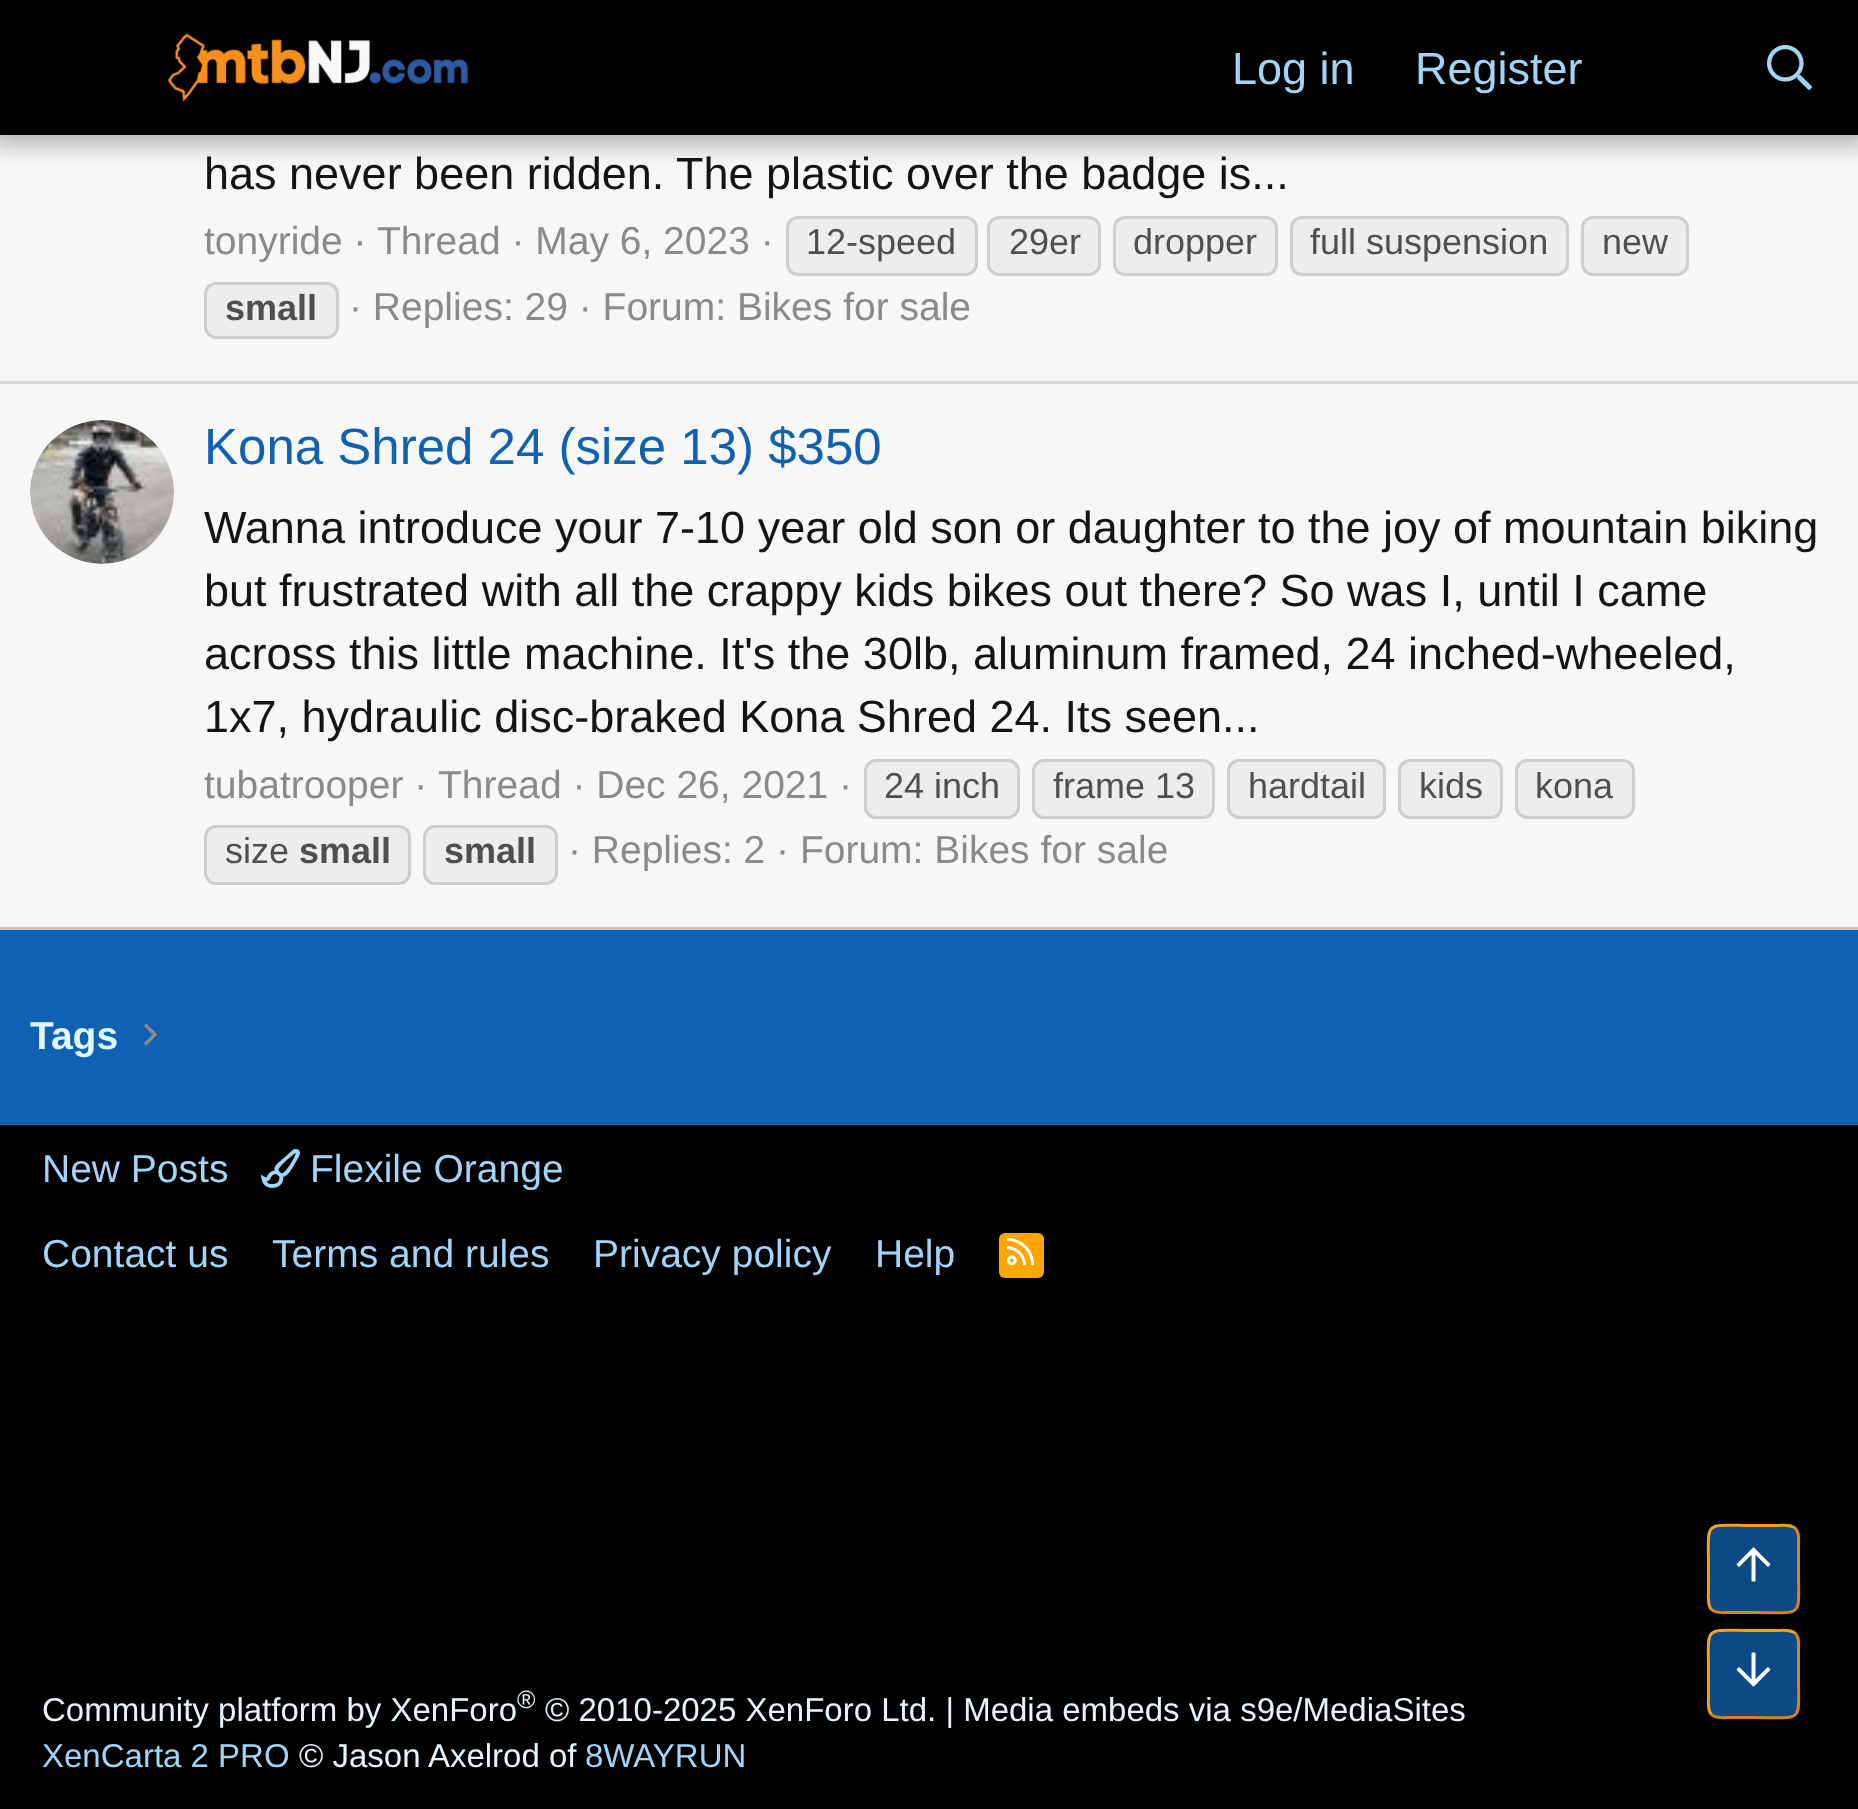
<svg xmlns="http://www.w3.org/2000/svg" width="1858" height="1809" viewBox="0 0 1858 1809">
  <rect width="100%" height="100%" fill="#1061b3"/>
  <path d="M0 135h1858v792H0z" fill="#f7f7f7"/>
  <path d="M-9 -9h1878v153H-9z" fill="#0000004d" filter="blur(12px)"/>
  <path d="M0 0h1858v135H0z" fill="#000"/>
  <image x="168" y="33" width="300" height="69" href="img/1.png"/>
  <image x="1767" y="45" width="45" height="45" href="img/2.png"/>
  <path d="M0 927h1858v3H0z" fill="#c4c4c4"/>
  <rect x="787.5" y="217.5" width="189" height="57" rx="10.5" fill="#ededed" stroke="#cecece" stroke-width="3"/>
  <rect x="988.5" y="217.5" width="111" height="57" rx="10.5" fill="#ededed" stroke="#cecece" stroke-width="3"/>
  <rect x="1114.5" y="217.5" width="162" height="57" rx="10.5" fill="#ededed" stroke="#cecece" stroke-width="3"/>
  <rect x="1291.5" y="217.5" width="276" height="57" rx="10.5" fill="#ededed" stroke="#cecece" stroke-width="3"/>
  <rect x="1582.5" y="217.5" width="105" height="57" rx="10.5" fill="#ededed" stroke="#cecece" stroke-width="3"/>
  <rect x="205.5" y="283.5" width="132" height="54" rx="10.5" fill="#ededed" stroke="#cecece" stroke-width="3"/>
  <path d="M0 381h1858v3H0z" fill="#d8d8d8"/>
  <image x="30" y="420" width="144" height="144" href="img/3.png"/>
  <rect x="865.5" y="760.5" width="153" height="57" rx="10.5" fill="#ededed" stroke="#cecece" stroke-width="3"/>
  <rect x="1033.5" y="760.5" width="180" height="57" rx="10.5" fill="#ededed" stroke="#cecece" stroke-width="3"/>
  <rect x="1228.5" y="760.5" width="156" height="57" rx="10.5" fill="#ededed" stroke="#cecece" stroke-width="3"/>
  <rect x="1399.5" y="760.5" width="102" height="57" rx="10.5" fill="#ededed" stroke="#cecece" stroke-width="3"/>
  <rect x="1516.5" y="760.5" width="117" height="57" rx="10.5" fill="#ededed" stroke="#cecece" stroke-width="3"/>
  <rect x="205.5" y="826.5" width="204" height="57" rx="10.5" fill="#ededed" stroke="#cecece" stroke-width="3"/>
  <rect x="424.5" y="826.5" width="132" height="57" rx="10.5" fill="#ededed" stroke="#cecece" stroke-width="3"/>
  <image x="144" y="1023" width="13" height="23" href="img/4.png"/>
  <path d="M0 1125h1858v684H0z" fill="#000"/>
  <image x="261" y="1149" width="39" height="39" href="img/5.png"/>
  <rect x="999" y="1233" width="45" height="45" rx="6" fill="#ffa500"/>
  <image x="1006" y="1238" width="29" height="28" href="img/6.png"/>
  <rect x="1707" y="1524" width="93" height="90" rx="12" fill="#0c4986"/>
  <path d="M1795.5 1528.5C1800 1533.5 1798.5 1541.5 1798.5 1547V1569C1798.5 1619.5 1804.5 1612.5 1753.5 1612.5H1730.5C1725 1612.5 1716.5 1614 1711.5 1609.5" fill="none" stroke="#da840c" stroke-width="3"/>
  <path d="M1711.5 1609.5C1707 1604.5 1708.5 1596.5 1708.5 1591V1569C1708.5 1518.5 1702.5 1525.5 1753.5 1525.5H1776.5C1782 1525.5 1790.5 1524 1795.5 1528.5" fill="none" stroke="#f39e25" stroke-width="3"/>
  <image x="1736" y="1547" width="35" height="35" href="img/7.png"/>
  <rect x="1707" y="1629" width="93" height="90" rx="12" fill="#0c4986"/>
  <path d="M1795.5 1633.5C1800 1638.5 1798.5 1646.5 1798.5 1652V1674C1798.5 1724.5 1804.5 1717.5 1753.5 1717.5H1730.5C1725 1717.5 1716.5 1719 1711.5 1714.5" fill="none" stroke="#da840c" stroke-width="3"/>
  <path d="M1711.5 1714.5C1707 1709.5 1708.5 1701.5 1708.5 1696V1674C1708.5 1623.5 1702.5 1630.5 1753.5 1630.5H1776.5C1782 1630.5 1790.5 1629 1795.5 1633.5" fill="none" stroke="#f39e25" stroke-width="3"/>
  <image x="1736" y="1652" width="35" height="35" href="img/8.png"/>
  <g font-family="Liberation Sans" font-size="45" fill="#a3d4f5">
    <text x="1232" y="84">Log in</text>
    <text x="1415" y="84">Register</text>
  </g>
  <text x="204" y="189" font-family="Liberation Sans" font-size="45" fill="#141414">has never been ridden. The plastic over the badge is...</text>
  <g font-family="Liberation Sans" font-size="39" fill="#8a8a8a">
    <text x="204" y="254">tonyride ·</text>
    <text x="377" y="254">Thread · May 6, 2023 ·</text>
  </g>
  <g font-family="Liberation Sans" font-size="36" fill="#4f4f4f">
    <text x="806" y="254">12-speed</text>
    <text x="1009" y="254">29er</text>
    <text x="1133" y="254">dropper</text>
    <text x="1310" y="254">full suspension</text>
    <text x="1602" y="254">new</text>
  </g>
  <text x="225" y="320" font-family="Liberation Sans" font-size="36" font-weight="bold" fill="#4f4f4f">small</text>
  <text x="349" y="320" font-family="Liberation Sans" font-size="39" fill="#8a8a8a">· Replies: 29 · Forum: Bikes for sale</text>
  <text x="204" y="464" font-family="Liberation Sans" font-size="51" fill="#1061b3">Kona Shred 24 (size 13) $350</text>
  <g font-family="Liberation Sans" font-size="45" fill="#141414">
    <text x="204" y="543">Wanna introduce your 7-10 year old son or daughter to the joy of mountain biking</text>
    <text x="204" y="606">but frustrated with all the crappy kids bikes out there? So was I, until I came</text>
    <text x="204" y="669">across this little machine. It's the 30lb, aluminum framed, 24 inched-wheeled,</text>
    <text x="204" y="732">1x7, hydraulic disc-braked Kona Shred 24. Its seen...</text>
  </g>
  <g font-family="Liberation Sans" font-size="39" fill="#8a8a8a">
    <text x="204" y="798">tubatrooper ·</text>
    <text x="438" y="798">Thread · Dec 26, 2021 ·</text>
  </g>
  <g font-family="Liberation Sans" font-size="36" fill="#4f4f4f">
    <text x="884" y="798">24 inch</text>
    <text x="1053" y="798">frame 13</text>
    <text x="1248" y="798">hardtail</text>
    <text x="1419" y="798">kids</text>
    <text x="1535" y="798">kona</text>
    <text x="225" y="863">size</text>
  </g>
  <g font-family="Liberation Sans" font-size="36" font-weight="bold" fill="#4f4f4f">
    <text x="299" y="863">small</text>
    <text x="444" y="863">small</text>
  </g>
  <text x="568" y="863" font-family="Liberation Sans" font-size="39" fill="#8a8a8a">· Replies: 2 · Forum: Bikes for sale</text>
  <text x="30" y="1049" font-family="Liberation Sans" font-size="39" font-weight="bold" fill="#e0f8fd">Tags</text>
  <g font-family="Liberation Sans" font-size="39" fill="#a3d4f5">
    <text x="42" y="1182">New Posts</text>
    <text x="310" y="1182">Flexile Orange</text>
    <text x="42" y="1267">Contact us</text>
    <text x="272" y="1267">Terms and rules</text>
    <text x="593" y="1267">Privacy policy</text>
    <text x="875" y="1267">Help</text>
  </g>
  <text x="42" y="1721" font-family="Liberation Sans" font-size="33" fill="#e8f4fc">Community platform by XenForo</text>
  <text x="517" y="1708" font-family="Liberation Sans" font-size="25" fill="#e8f4fc">®</text>
  <text x="545" y="1721" font-family="Liberation Sans" font-size="33" fill="#e8f4fc">© 2010-2025 XenForo Ltd. | Media embeds via s9e/MediaSites</text>
  <text x="42" y="1767" font-family="Liberation Sans" font-size="33" fill="#a3d4f5">XenCarta 2 PRO</text>
  <text x="299" y="1767" font-family="Liberation Sans" font-size="33" fill="#e8f4fc">© Jason Axelrod of</text>
  <text x="585" y="1767" font-family="Liberation Sans" font-size="33" fill="#a3d4f5">8WAYRUN</text>
</svg>
